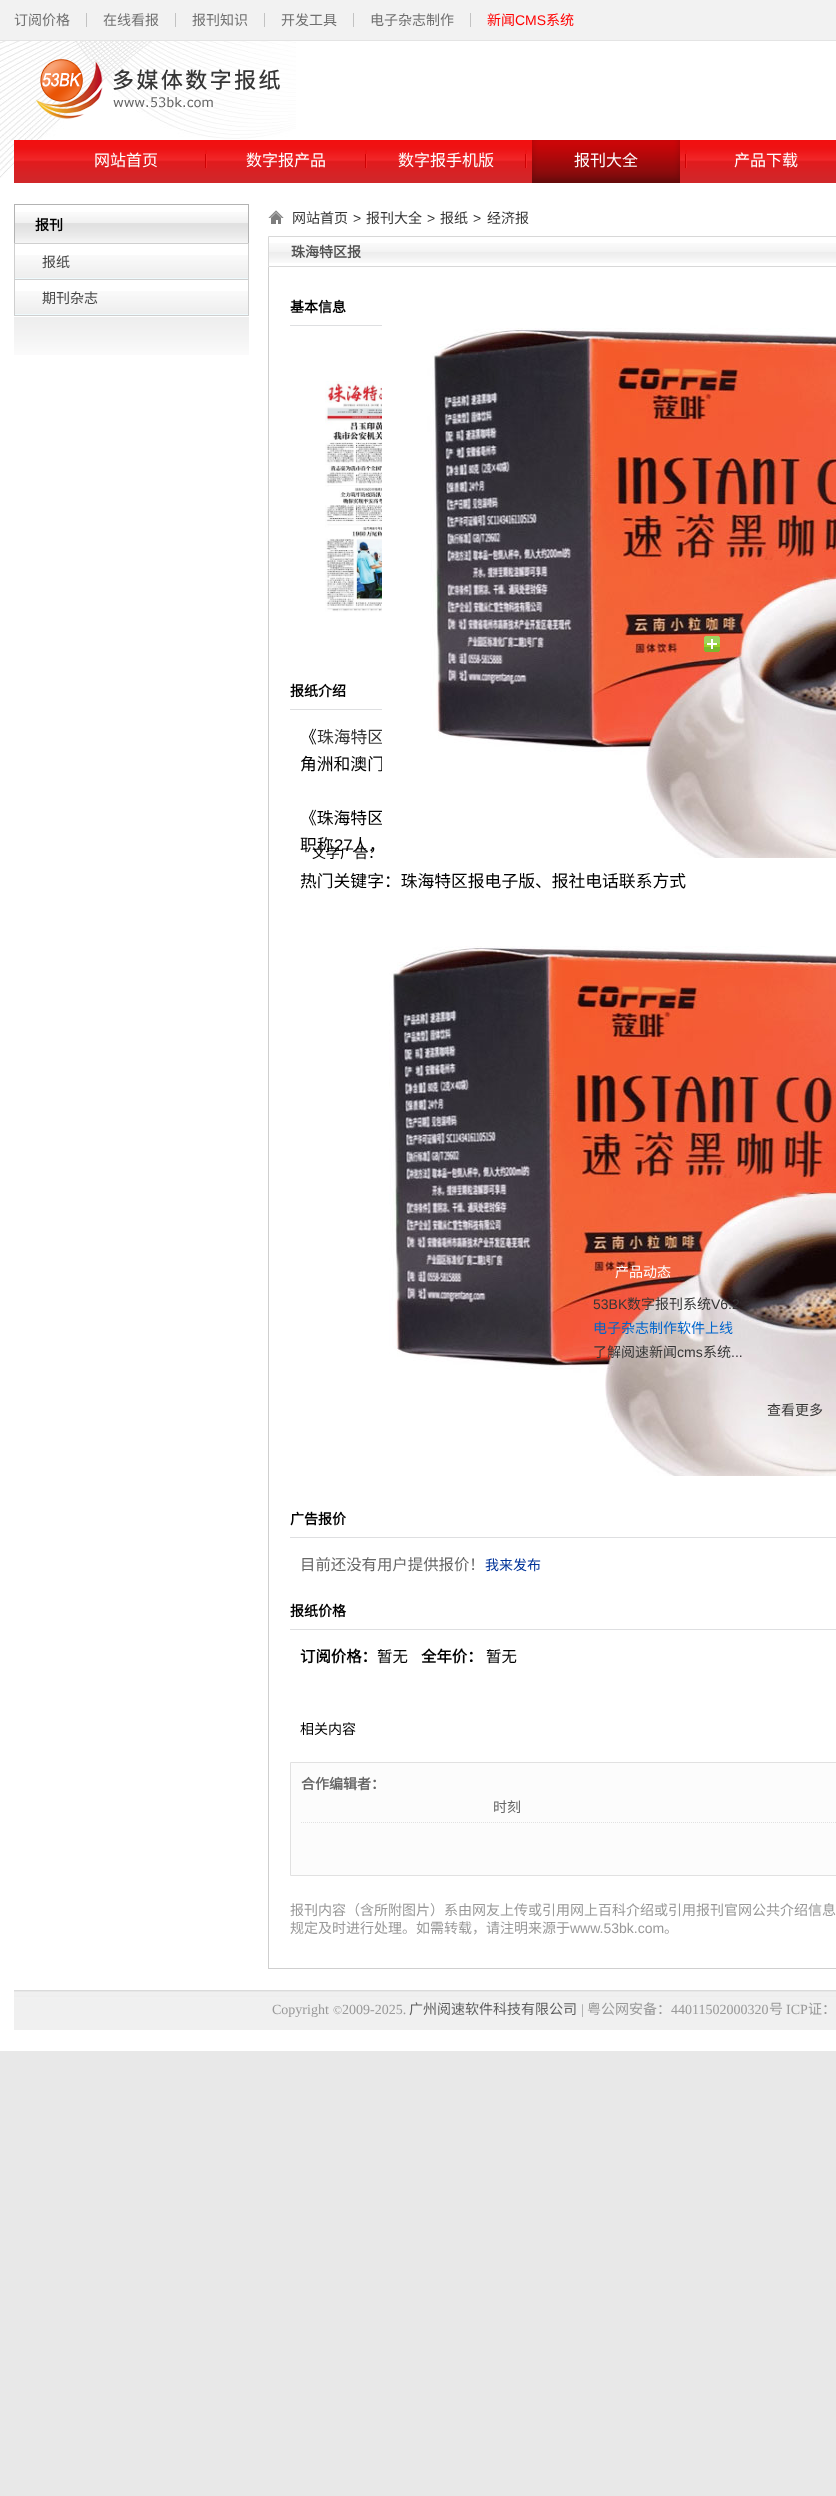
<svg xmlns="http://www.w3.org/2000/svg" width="836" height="2496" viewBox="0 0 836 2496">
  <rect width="100%" height="100%" fill="#e8e8e8"/>
  <path d="M0 41h836v2010H0z" fill="#fff"/>
  <image x="0" y="41" width="296" height="137" href="img/1.png"/>
  <path d="M0 0h836v40H0z" fill="#f2f2f2"/>
  <path d="M0 40h836v1H0z" fill="#e4e4e4"/>
  <path d="M86 13h1v14H86z" fill="#c3c3c3"/>
  <path d="M175 13h1v14H175z" fill="#c3c3c3"/>
  <path d="M264 13h1v14H264z" fill="#c3c3c3"/>
  <path d="M353 13h1v14H353z" fill="#c3c3c3"/>
  <path d="M470 13h1v14H470z" fill="#c3c3c3"/>
  <image x="35" y="59" width="245" height="60" href="img/2.png"/>
  <image x="14" y="140" width="822" height="43" href="img/3.png"/>
  <image x="205" y="150" width="2" height="18" href="img/4.png"/>
  <image x="365" y="150" width="2" height="18" href="img/4.png"/>
  <image x="525" y="150" width="2" height="18" href="img/4.png"/>
  <image x="685" y="150" width="2" height="18" href="img/4.png"/>
  <image x="532" y="140" width="148" height="43" href="img/5.png"/>
  <image x="14" y="317" width="235" height="38" href="img/6.png"/>
  <image x="15" y="212" width="233" height="31" href="img/7.png"/>
  <path d="M14 204h235v1H14z" fill="#b3b3b3"/>
  <path d="M248 204h1v39H248z" fill="#b3b3b3"/>
  <path d="M14 204h1v39H14z" fill="#b3b3b3"/>
  <path d="M14 315h235v1H14z" fill="#cfcfcf"/>
  <image x="15" y="255" width="233" height="24" href="img/8.png"/>
  <path d="M14 243h235v1H14z" fill="#cfcfcf"/>
  <path d="M248 243h1v36H248z" fill="#cfcfcf"/>
  <path d="M14 243h1v36H14z" fill="#cfcfcf"/>
  <image x="15" y="291" width="233" height="24" href="img/8.png"/>
  <path d="M14 279h235v1H14z" fill="#cfcfcf"/>
  <path d="M248 279h1v36H248z" fill="#cfcfcf"/>
  <path d="M14 279h1v36H14z" fill="#cfcfcf"/>
  <image x="268" y="210" width="16" height="14" href="img/9.png"/>
  <image x="269" y="243" width="567" height="20" href="img/10.png"/>
  <path d="M268.5 236.5h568v30H268.5z" fill="none" stroke="#d8d8d8"/>
  <path d="M268 1968h568v1H268z" fill="#cfcfcf"/>
  <path d="M268 267h1v1702H268z" fill="#cfcfcf"/>
  <path d="M290 325h92v1H290z" fill="#dedfe1"/>
  <image x="325" y="381" width="57" height="231" href="img/12.png"/>
  <path d="M290 709h92v1H290z" fill="#dedfe1"/>
  <image x="389" y="946" width="447" height="530" href="img/14.png"/>
  <path d="M290 1537h546v1H290z" fill="#dedfe1"/>
  <path d="M290 1629h546v1H290z" fill="#dedfe1"/>
  <path d="M290.5 1762.5h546v113H290.5z" fill="#fcfcfc" stroke="#e1e1e1"/>
  <path d="M301 1822.5H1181" fill="none" stroke="#e1e1e1" stroke-dasharray="1 1"/>
  <image x="14" y="1990" width="822" height="40" href="img/15.png"/>
  <g font-family="Noto Sans CJK SC" font-size="14" fill="#707070">
    <text x="14" y="25">订阅价格</text>
    <text x="103" y="25">在线看报</text>
    <text x="192" y="25">报刊知识</text>
    <text x="281" y="25">开发工具</text>
    <text x="370" y="25">电子杂志制作</text>
  </g>
  <text x="487" y="25" font-family="Noto Sans CJK SC" font-size="14" fill="#f00">新闻</text>
  <text x="515" y="25" font-family="Liberation Sans" font-size="14" fill="#f00">CMS</text>
  <text x="546" y="25" font-family="Noto Sans CJK SC" font-size="14" fill="#f00">系统</text>
  <g font-family="Noto Sans CJK SC" font-size="16" fill="#fefefe">
    <text x="94" y="166">网站首页</text>
    <text x="246" y="166">数字报产品</text>
    <text x="398" y="166">数字报手机版</text>
    <text x="574" y="166">报刊大全</text>
    <text x="734" y="166">产品下载</text>
  </g>
  <text x="35" y="230" font-family="Noto Sans CJK SC" font-size="14" font-weight="bold" fill="#000">报刊</text>
  <g font-family="Noto Sans CJK SC" font-size="14" fill="#464646">
    <text x="42" y="267">报纸</text>
    <text x="42" y="303">期刊杂志</text>
  </g>
  <text x="292" y="223" font-family="Noto Sans CJK SC" font-size="14" fill="#363636">网站首页</text>
  <text x="353" y="223" font-family="Liberation Sans" font-size="14" fill="#363636">&gt;</text>
  <text x="366" y="223" font-family="Noto Sans CJK SC" font-size="14" fill="#363636">报刊大全</text>
  <text x="427" y="223" font-family="Liberation Sans" font-size="14" fill="#363636">&gt;</text>
  <text x="440" y="223" font-family="Noto Sans CJK SC" font-size="14" fill="#363636">报纸</text>
  <text x="473" y="223" font-family="Liberation Sans" font-size="14" fill="#363636">&gt;</text>
  <text x="487" y="223" font-family="Noto Sans CJK SC" font-size="14" fill="#363636">经济报</text>
  <text x="291" y="257" font-family="Noto Sans CJK SC" font-size="14" font-weight="bold" fill="#535353">珠海特区报</text>
  <g font-family="Noto Sans CJK SC" font-size="14" font-weight="bold" fill="#000">
    <text x="290" y="312">基本信息</text>
    <text x="290" y="696">报纸介绍</text>
  </g>
  <text x="300" y="743" font-family="Noto Sans CJK SC" font-size="16.8" fill="#000">《</text>
  <text x="317" y="743" font-family="Noto Sans CJK SC" font-size="16.8" fill="#363636">珠海特区</text>
  <g font-family="Noto Sans CJK SC" font-size="16.8" fill="#000">
    <text x="300" y="770">角洲和澳门</text>
    <text x="300" y="824">《珠海特区</text>
  </g>
  <image x="382" y="325" width="454" height="533" href="img/11.png"/>
  <image x="704" y="636" width="16" height="16" href="img/13.png"/>
  <text x="300" y="851" font-family="Noto Sans CJK SC" font-size="16.8" fill="#000">职称</text>
  <text x="334" y="851" font-family="Liberation Sans" font-size="16.8" fill="#000">27</text>
  <text x="352" y="851" font-family="Noto Sans CJK SC" font-size="16.8" fill="#000">人，</text>
  <text x="312" y="858" font-family="Noto Sans CJK SC" font-size="14" fill="#000">文字广告：</text>
  <text x="300" y="887" font-family="Noto Sans CJK SC" font-size="16.8" fill="#000">热门关键字：珠海特区报电子版、报社电话联系方式</text>
  <text x="290" y="1524" font-family="Noto Sans CJK SC" font-size="14" font-weight="bold" fill="#000">广告报价</text>
  <text x="300" y="1570" font-family="Noto Sans CJK SC" font-size="15.4" fill="#666">目前还没有用户提供报价！</text>
  <text x="485" y="1570" font-family="Noto Sans CJK SC" font-size="14" fill="#039">我来发布</text>
  <text x="290" y="1616" font-family="Noto Sans CJK SC" font-size="14" font-weight="bold" fill="#000">报纸价格</text>
  <text x="300" y="1662" font-family="Noto Sans CJK SC" font-size="15.4" font-weight="bold" fill="#000">订阅价格：</text>
  <text x="377" y="1662" font-family="Noto Sans CJK SC" font-size="15.4" fill="#000">暂无</text>
  <text x="421" y="1662" font-family="Noto Sans CJK SC" font-size="15.4" font-weight="bold" fill="#000">全年价：</text>
  <text x="486" y="1662" font-family="Noto Sans CJK SC" font-size="15.4" fill="#000">暂无</text>
  <text x="300" y="1734" font-family="Noto Sans CJK SC" font-size="14" fill="#000">相关内容</text>
  <text x="301" y="1789" font-family="Noto Sans CJK SC" font-size="14" font-weight="bold" fill="#666">合作编辑者：</text>
  <text x="493" y="1812" font-family="Noto Sans CJK SC" font-size="14" fill="#666">时刻</text>
  <g font-family="Noto Sans CJK SC" font-size="14" fill="#999">
    <text x="290" y="1915">报刊内容（含所附图片）系由网友上传或引用网上百科介绍或引用报刊官网公共介绍信息</text>
    <text x="290" y="1933">规定及时进行处理。如需转载，请注明来源于</text>
  </g>
  <text x="570" y="1933" font-family="Liberation Sans" font-size="14" fill="#999">www.53bk.com</text>
  <text x="664" y="1933" font-family="Noto Sans CJK SC" font-size="14" fill="#999">。</text>
  <text x="272" y="2014" font-family="Liberation Serif" font-size="14" fill="#999">Copyright</text>
  <text x="333" y="2014" font-family="Liberation Serif" font-size="12" fill="#999">©</text>
  <text x="342" y="2014" font-family="Liberation Serif" font-size="14" fill="#999">2009-2025.</text>
  <text x="409" y="2014" font-family="Noto Sans CJK SC" font-size="14" fill="#5e5e5e">广州阅速软件科技有限公司</text>
  <text x="581" y="2014" font-family="Liberation Serif" font-size="14" fill="#999">|</text>
  <text x="587" y="2014" font-family="Noto Sans CJK SC" font-size="14" fill="#999">粤公网安备：</text>
  <text x="671" y="2014" font-family="Liberation Serif" font-size="14" fill="#999">44011502000320</text>
  <text x="769" y="2014" font-family="Noto Sans CJK SC" font-size="14" fill="#999">号</text>
  <text x="786" y="2014" font-family="Liberation Serif" font-size="14" fill="#999">ICP</text>
  <text x="808" y="2014" font-family="Noto Sans CJK SC" font-size="14" fill="#999">证：</text>
  <text x="615" y="1277" font-family="Noto Sans CJK SC" font-size="14" fill="#fefefe">产品动态</text>
  <text x="593" y="1309" font-family="Liberation Sans" font-size="14" fill="#363636">53BK</text>
  <text x="627" y="1309" font-family="Noto Sans CJK SC" font-size="14" fill="#363636">数字报刊系统</text>
  <text x="711" y="1309" font-family="Liberation Sans" font-size="14" fill="#363636">V6.2</text>
  <text x="593" y="1333" font-family="Noto Sans CJK SC" font-size="14" fill="#06c">电子杂志制作软件上线</text>
  <text x="593" y="1357" font-family="Noto Sans CJK SC" font-size="14" fill="#363636">了解阅速新闻</text>
  <text x="677" y="1357" font-family="Liberation Sans" font-size="14" fill="#363636">cms</text>
  <text x="703" y="1357" font-family="Noto Sans CJK SC" font-size="14" fill="#363636">系统</text>
  <text x="731" y="1357" font-family="Liberation Sans" font-size="14" fill="#363636">...</text>
  <text x="767" y="1415" font-family="Noto Sans CJK SC" font-size="14" fill="#363636">查看更多</text>
</svg>
